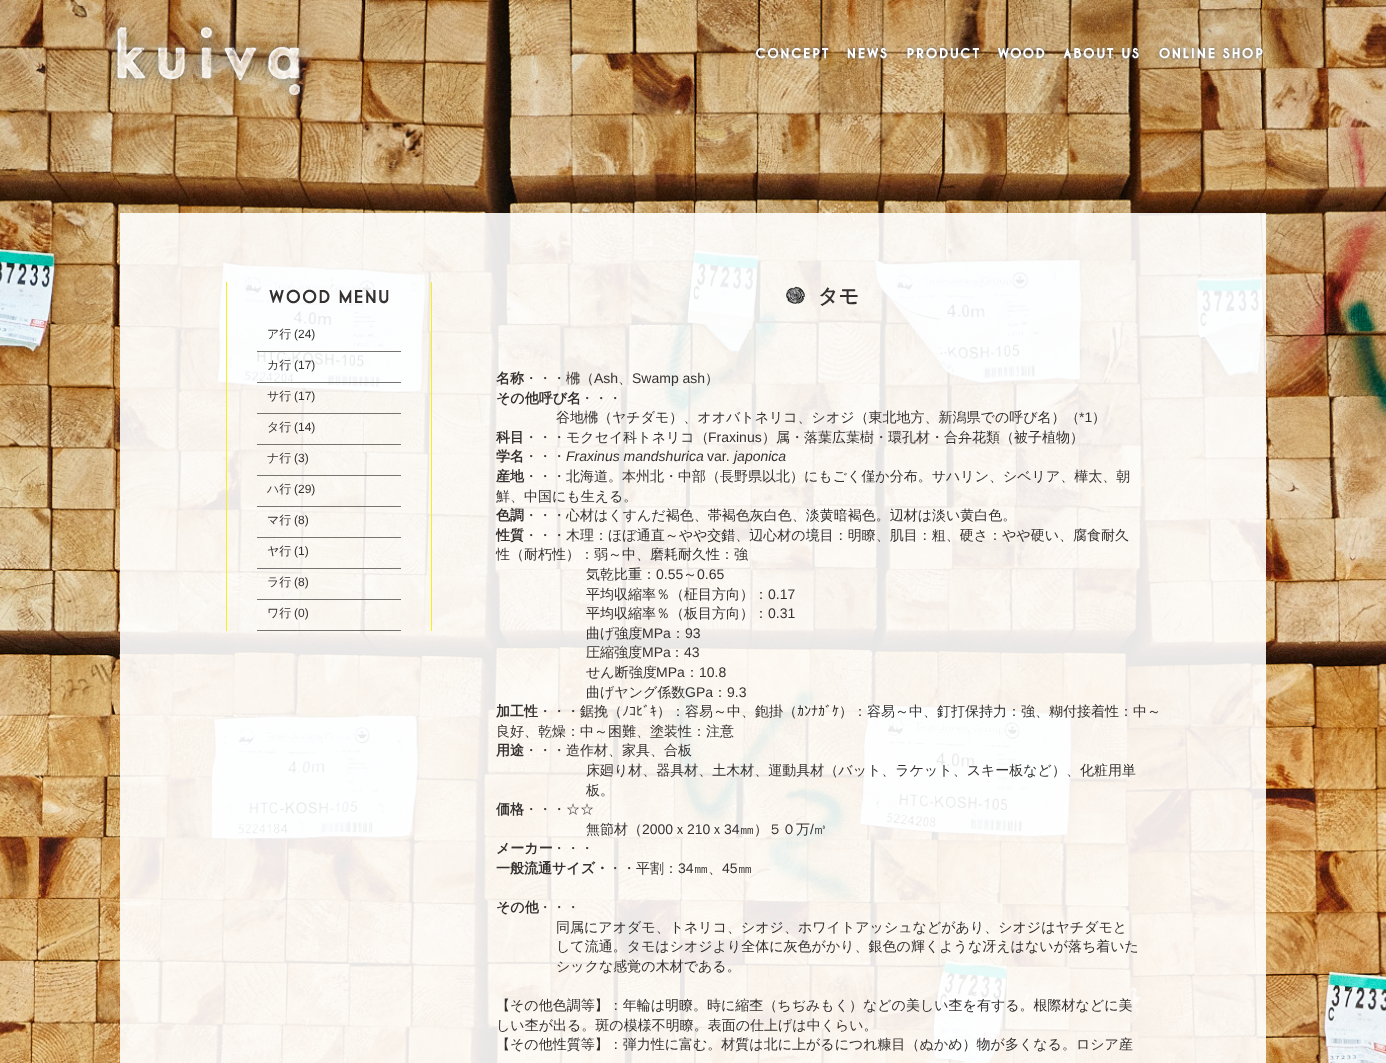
<svg xmlns="http://www.w3.org/2000/svg" width="1386" height="1063" viewBox="0 0 1386 1063">
  <rect width="100%" height="100%" fill="#fff"/>
  <image x="0" y="0" width="1386" height="1063" href="img/1.png"/>
  <image x="107" y="18" width="207" height="87" href="img/2.png"/>
  <image x="753" y="45" width="77" height="16" href="img/3.png"/>
  <image x="845" y="45" width="44" height="16" href="img/4.png"/>
  <image x="905" y="45" width="76" height="16" href="img/5.png"/>
  <image x="996" y="45" width="51" height="16" href="img/6.png"/>
  <image x="1061" y="45" width="80" height="16" href="img/7.png"/>
  <image x="1157" y="45" width="108" height="16" href="img/8.png"/>
  <path d="M120 213h1146v850H120z" fill="#ffffffe6"/>
  <path d="M431 282h1v349H431z" fill="#f7ef1a"/>
  <path d="M226 282h1v349H226z" fill="#f7ef1a"/>
  <image x="269" y="289" width="120" height="15" href="img/9.png"/>
  <path d="M257 351h144v1H257z" fill="#767471"/>
  <path d="M257 382h144v1H257z" fill="#767471"/>
  <path d="M257 413h144v1H257z" fill="#767471"/>
  <path d="M257 444h144v1H257z" fill="#767471"/>
  <path d="M257 475h144v1H257z" fill="#767471"/>
  <path d="M257 506h144v1H257z" fill="#767471"/>
  <path d="M257 537h144v1H257z" fill="#767471"/>
  <path d="M257 568h144v1H257z" fill="#767471"/>
  <path d="M257 599h144v1H257z" fill="#767471"/>
  <path d="M257 630h144v1H257z" fill="#767471"/>
  <image x="786" y="286" width="20" height="18" href="img/10.png"/>
  <text x="267" y="338" font-family="WenQuanYi Zen Hei" font-size="12" font-weight="500" fill="#353131">ア行</text>
  <text x="294" y="338" font-family="Liberation Sans" font-size="12" fill="#353131">(24)</text>
  <text x="267" y="369" font-family="WenQuanYi Zen Hei" font-size="12" font-weight="500" fill="#353131">カ行</text>
  <text x="294" y="369" font-family="Liberation Sans" font-size="12" fill="#353131">(17)</text>
  <text x="267" y="400" font-family="WenQuanYi Zen Hei" font-size="12" font-weight="500" fill="#353131">サ行</text>
  <text x="294" y="400" font-family="Liberation Sans" font-size="12" fill="#353131">(17)</text>
  <text x="267" y="431" font-family="WenQuanYi Zen Hei" font-size="12" font-weight="500" fill="#353131">タ行</text>
  <text x="294" y="431" font-family="Liberation Sans" font-size="12" fill="#353131">(14)</text>
  <text x="267" y="462" font-family="WenQuanYi Zen Hei" font-size="12" font-weight="500" fill="#353131">ナ行</text>
  <text x="294" y="462" font-family="Liberation Sans" font-size="12" fill="#353131">(3)</text>
  <text x="267" y="493" font-family="WenQuanYi Zen Hei" font-size="12" font-weight="500" fill="#353131">ハ行</text>
  <text x="294" y="493" font-family="Liberation Sans" font-size="12" fill="#353131">(29)</text>
  <text x="267" y="524" font-family="WenQuanYi Zen Hei" font-size="12" font-weight="500" fill="#353131">マ行</text>
  <text x="294" y="524" font-family="Liberation Sans" font-size="12" fill="#353131">(8)</text>
  <text x="267" y="555" font-family="WenQuanYi Zen Hei" font-size="12" font-weight="500" fill="#353131">ヤ行</text>
  <text x="294" y="555" font-family="Liberation Sans" font-size="12" fill="#353131">(1)</text>
  <text x="267" y="586" font-family="WenQuanYi Zen Hei" font-size="12" font-weight="500" fill="#353131">ラ行</text>
  <text x="294" y="586" font-family="Liberation Sans" font-size="12" fill="#353131">(8)</text>
  <text x="267" y="617" font-family="WenQuanYi Zen Hei" font-size="12" font-weight="500" fill="#353131">ワ行</text>
  <text x="294" y="617" font-family="Liberation Sans" font-size="12" fill="#353131">(0)</text>
  <text x="818" y="303" font-family="WenQuanYi Zen Hei" font-size="20" font-weight="bold" fill="#353131">タモ</text>
  <text x="496" y="383" font-family="WenQuanYi Zen Hei" font-size="14" font-weight="bold" fill="#353131">名称</text>
  <text x="524" y="383" font-family="WenQuanYi Zen Hei" font-size="14" font-weight="500" fill="#353131">・・・梻（</text>
  <text x="594" y="383" font-family="Liberation Sans" font-size="14" fill="#353131">Ash</text>
  <text x="618" y="383" font-family="WenQuanYi Zen Hei" font-size="14" font-weight="500" fill="#353131">、</text>
  <text x="632" y="383" font-family="Liberation Sans" font-size="14" fill="#353131">Swamp ash</text>
  <text x="705" y="383" font-family="WenQuanYi Zen Hei" font-size="14" font-weight="500" fill="#353131">）</text>
  <text x="496" y="403" font-family="WenQuanYi Zen Hei" font-size="14" font-weight="bold" fill="#353131">その他呼び名</text>
  <g font-family="WenQuanYi Zen Hei" font-size="14" font-weight="500" fill="#353131">
    <text x="580" y="403">・・・</text>
    <text x="556" y="422">谷地梻（ヤチダモ）、オオバトネリコ、シオジ（東北地方、新潟県での呼び名）（</text>
  </g>
  <text x="1079" y="422" font-family="Liberation Sans" font-size="14" fill="#353131">*1</text>
  <text x="1092" y="422" font-family="WenQuanYi Zen Hei" font-size="14" font-weight="500" fill="#353131">）</text>
  <text x="496" y="442" font-family="WenQuanYi Zen Hei" font-size="14" font-weight="bold" fill="#353131">科目</text>
  <text x="524" y="442" font-family="WenQuanYi Zen Hei" font-size="14" font-weight="500" fill="#353131">・・・モクセイ科トネリコ（</text>
  <text x="708" y="442" font-family="Liberation Sans" font-size="14" fill="#353131">Fraxinus</text>
  <text x="762" y="442" font-family="WenQuanYi Zen Hei" font-size="14" font-weight="500" fill="#353131">）属・落葉広葉樹・環孔材・合弁花類（被子植物）</text>
  <text x="496" y="461" font-family="WenQuanYi Zen Hei" font-size="14" font-weight="bold" fill="#353131">学名</text>
  <text x="524" y="461" font-family="WenQuanYi Zen Hei" font-size="14" font-weight="500" fill="#353131">・・・</text>
  <text x="566" y="461" font-family="Liberation Sans" font-size="14" font-style="italic" fill="#353131">Fraxinus mandshurica</text>
  <text x="707" y="461" font-family="Liberation Sans" font-size="14" fill="#353131">var.</text>
  <text x="734" y="461" font-family="Liberation Sans" font-size="14" font-style="italic" fill="#353131">japonica</text>
  <text x="496" y="481" font-family="WenQuanYi Zen Hei" font-size="14" font-weight="bold" fill="#353131">産地</text>
  <g font-family="WenQuanYi Zen Hei" font-size="14" font-weight="500" fill="#353131">
    <text x="524" y="481">・・・北海道。本州北・中部（長野県以北）にもごく僅か分布。サハリン、シベリア、樺太、朝</text>
    <text x="496" y="501">鮮、中国にも生える。</text>
  </g>
  <text x="496" y="520" font-family="WenQuanYi Zen Hei" font-size="14" font-weight="bold" fill="#353131">色調</text>
  <text x="524" y="520" font-family="WenQuanYi Zen Hei" font-size="14" font-weight="500" fill="#353131">・・・心材はくすんだ褐色、帯褐色灰白色、淡黄暗褐色。辺材は淡い黄白色。</text>
  <text x="496" y="540" font-family="WenQuanYi Zen Hei" font-size="14" font-weight="bold" fill="#353131">性質</text>
  <g font-family="WenQuanYi Zen Hei" font-size="14" font-weight="500" fill="#353131">
    <text x="524" y="540">・・・木理：ほぼ通直～やや交錯、辺心材の境目：明瞭、肌目：粗、硬さ：やや硬い、腐食耐久</text>
    <text x="496" y="559">性（耐朽性）：弱～中、磨耗耐久性：強</text>
    <text x="586" y="579">気乾比重：</text>
  </g>
  <text x="656" y="579" font-family="Liberation Sans" font-size="14" fill="#353131">0.55</text>
  <text x="683" y="579" font-family="WenQuanYi Zen Hei" font-size="14" font-weight="500" fill="#353131">～</text>
  <text x="697" y="579" font-family="Liberation Sans" font-size="14" fill="#353131">0.65</text>
  <text x="586" y="599" font-family="WenQuanYi Zen Hei" font-size="14" font-weight="500" fill="#353131">平均収縮率％（柾目方向）：</text>
  <text x="768" y="599" font-family="Liberation Sans" font-size="14" fill="#353131">0.17</text>
  <text x="586" y="618" font-family="WenQuanYi Zen Hei" font-size="14" font-weight="500" fill="#353131">平均収縮率％（板目方向）：</text>
  <text x="768" y="618" font-family="Liberation Sans" font-size="14" fill="#353131">0.31</text>
  <text x="586" y="638" font-family="WenQuanYi Zen Hei" font-size="14" font-weight="500" fill="#353131">曲げ強度</text>
  <text x="642" y="638" font-family="Liberation Sans" font-size="14" fill="#353131">MPa</text>
  <text x="671" y="638" font-family="WenQuanYi Zen Hei" font-size="14" font-weight="500" fill="#353131">：</text>
  <text x="685" y="638" font-family="Liberation Sans" font-size="14" fill="#353131">93</text>
  <text x="586" y="657" font-family="WenQuanYi Zen Hei" font-size="14" font-weight="500" fill="#353131">圧縮強度</text>
  <text x="642" y="657" font-family="Liberation Sans" font-size="14" fill="#353131">MPa</text>
  <text x="670" y="657" font-family="WenQuanYi Zen Hei" font-size="14" font-weight="500" fill="#353131">：</text>
  <text x="684" y="657" font-family="Liberation Sans" font-size="14" fill="#353131">43</text>
  <text x="586" y="677" font-family="WenQuanYi Zen Hei" font-size="14" font-weight="500" fill="#353131">せん断強度</text>
  <text x="656" y="677" font-family="Liberation Sans" font-size="14" fill="#353131">MPa</text>
  <text x="685" y="677" font-family="WenQuanYi Zen Hei" font-size="14" font-weight="500" fill="#353131">：</text>
  <text x="699" y="677" font-family="Liberation Sans" font-size="14" fill="#353131">10.8</text>
  <text x="586" y="697" font-family="WenQuanYi Zen Hei" font-size="14" font-weight="500" fill="#353131">曲げヤング係数</text>
  <text x="685" y="697" font-family="Liberation Sans" font-size="14" fill="#353131">GPa</text>
  <text x="713" y="697" font-family="WenQuanYi Zen Hei" font-size="14" font-weight="500" fill="#353131">：</text>
  <text x="727" y="697" font-family="Liberation Sans" font-size="14" fill="#353131">9.3</text>
  <text x="496" y="716" font-family="WenQuanYi Zen Hei" font-size="14" font-weight="bold" fill="#353131">加工性</text>
  <text x="538" y="716" font-family="WenQuanYi Zen Hei" font-size="14" font-weight="500" fill="#353131">・・・鋸挽（</text>
  <text x="622" y="716" font-family="IPAPGothic" font-size="14" fill="#353131">ﾉｺﾋﾞｷ</text>
  <text x="657" y="716" font-family="WenQuanYi Zen Hei" font-size="14" font-weight="500" fill="#353131">）：容易～中、鉋掛（</text>
  <text x="797" y="716" font-family="IPAPGothic" font-size="14" fill="#353131">ｶﾝﾅｶﾞｹ</text>
  <g font-family="WenQuanYi Zen Hei" font-size="14" font-weight="500" fill="#353131">
    <text x="839" y="716">）：容易～中、釘打保持力：強、糊付接着性：中～</text>
    <text x="496" y="736">良好、乾燥：中～困難、塗装性：注意</text>
  </g>
  <text x="496" y="755" font-family="WenQuanYi Zen Hei" font-size="14" font-weight="bold" fill="#353131">用途</text>
  <g font-family="WenQuanYi Zen Hei" font-size="14" font-weight="500" fill="#353131">
    <text x="524" y="755">・・・造作材、家具、合板</text>
    <text x="586" y="775">床廻り材、器具材、土木材、運動具材（バット、ラケット、スキー板など）、化粧用単</text>
    <text x="586" y="795">板。</text>
  </g>
  <text x="496" y="814" font-family="WenQuanYi Zen Hei" font-size="14" font-weight="bold" fill="#353131">価格</text>
  <g font-family="WenQuanYi Zen Hei" font-size="14" font-weight="500" fill="#353131">
    <text x="524" y="814">・・・☆☆</text>
    <text x="586" y="834">無節材（</text>
  </g>
  <text x="642" y="834" font-family="Liberation Sans" font-size="14" fill="#353131">2000</text>
  <text x="673" y="834" font-family="WenQuanYi Zen Hei" font-size="14" font-weight="500" fill="#353131">ｘ</text>
  <text x="687" y="834" font-family="Liberation Sans" font-size="14" fill="#353131">210</text>
  <text x="710" y="834" font-family="WenQuanYi Zen Hei" font-size="14" font-weight="500" fill="#353131">ｘ</text>
  <text x="724" y="834" font-family="Liberation Sans" font-size="14" fill="#353131">34</text>
  <text x="740" y="834" font-family="WenQuanYi Zen Hei" font-size="14" font-weight="500" fill="#353131">㎜）５０万</text>
  <text x="810" y="834" font-family="Liberation Sans" font-size="14" fill="#353131">/</text>
  <text x="813" y="834" font-family="WenQuanYi Zen Hei" font-size="14" font-weight="500" fill="#353131">㎥</text>
  <text x="496" y="853" font-family="WenQuanYi Zen Hei" font-size="14" font-weight="bold" fill="#353131">メーカー</text>
  <text x="552" y="853" font-family="WenQuanYi Zen Hei" font-size="14" font-weight="500" fill="#353131">・・・</text>
  <text x="496" y="873" font-family="WenQuanYi Zen Hei" font-size="14" font-weight="bold" fill="#353131">一般流通サイズ・</text>
  <text x="608" y="873" font-family="WenQuanYi Zen Hei" font-size="14" font-weight="500" fill="#353131">・・平割：</text>
  <text x="678" y="873" font-family="Liberation Sans" font-size="14" fill="#353131">34</text>
  <text x="694" y="873" font-family="WenQuanYi Zen Hei" font-size="14" font-weight="500" fill="#353131">㎜、</text>
  <text x="722" y="873" font-family="Liberation Sans" font-size="14" fill="#353131">45</text>
  <text x="738" y="873" font-family="WenQuanYi Zen Hei" font-size="14" font-weight="500" fill="#353131">㎜</text>
  <text x="496" y="912" font-family="WenQuanYi Zen Hei" font-size="14" font-weight="bold" fill="#353131">その他</text>
  <g font-family="WenQuanYi Zen Hei" font-size="14" font-weight="500" fill="#353131">
    <text x="538" y="912">・・・</text>
    <text x="556" y="932">同属にアオダモ、トネリコ、シオジ、ホワイトアッシュなどがあり、シオジはヤチダモと</text>
    <text x="556" y="951">して流通。タモはシオジより全体に灰色がかり、銀色の輝くような冴えはないが落ち着いた</text>
    <text x="556" y="971">シックな感覚の木材である。</text>
    <text x="496" y="1010">【その他色調等】：年輪は明瞭。時に縮杢（ちぢみもく）などの美しい杢を有する。根際材などに美</text>
    <text x="496" y="1030">しい杢が出る。斑の模様不明瞭。表面の仕上げは中くらい。</text>
    <text x="496" y="1049">【その他性質等】：弾力性に富む。材質は北に上がるにつれ糠目（ぬかめ）物が多くなる。ロシア産</text>
  </g>
</svg>
